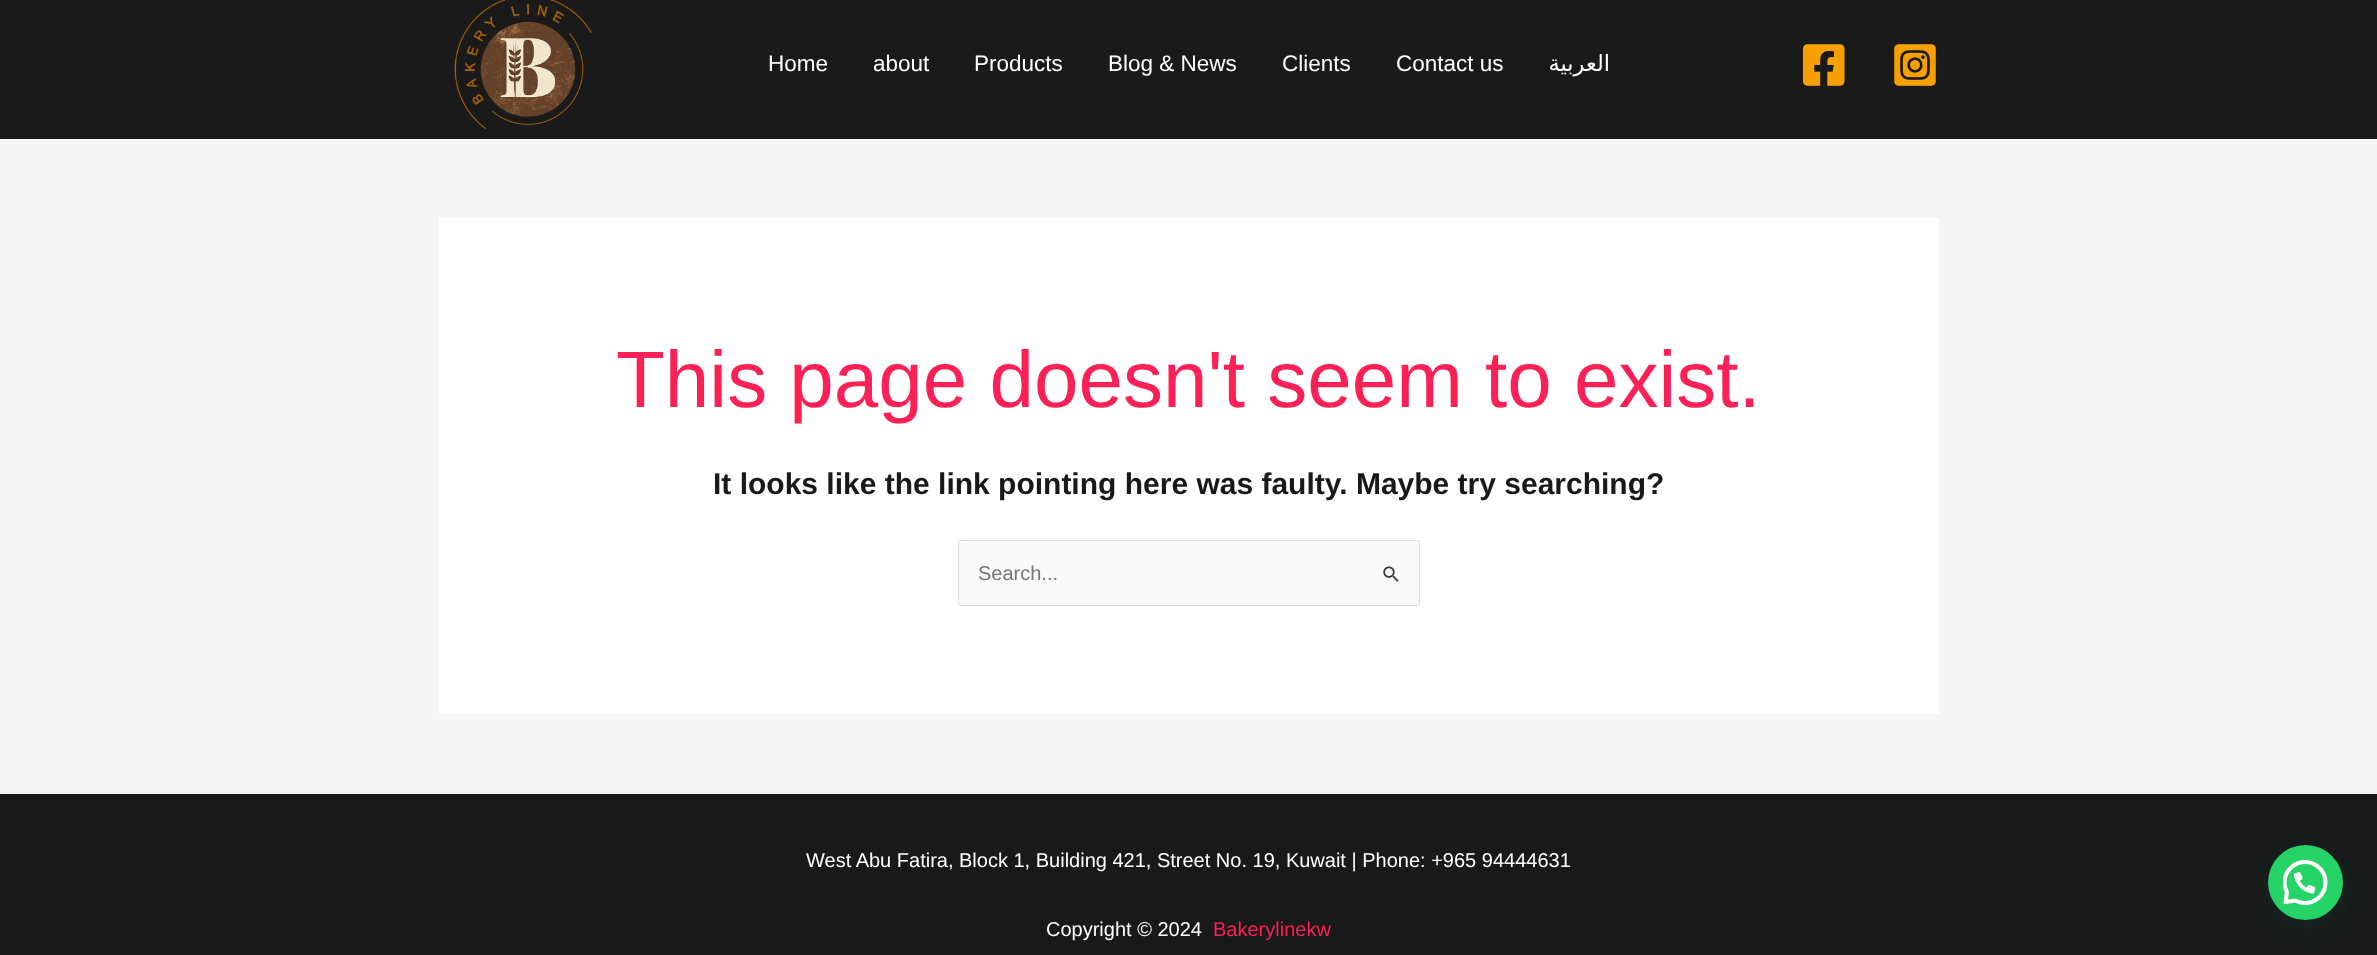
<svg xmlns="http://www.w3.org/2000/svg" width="2377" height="955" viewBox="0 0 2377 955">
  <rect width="100%" height="100%" fill="#f5f5f5"/>
  <path d="M0 0h2377v139H0z" fill="#1a1a1a"/>
  <image x="454" y="0" width="138" height="130" href="img/1.png"/>
  <image x="1802" y="44" width="43" height="42" href="img/2.png"/>
  <image x="1894" y="44" width="42" height="42" href="img/3.png"/>
  <path d="M439 218h1500v496H439z" fill="#fff"/>
  <rect x="958.5" y="540.5" width="461" height="65" rx="2" fill="#fafafa" stroke="#ddd"/>
  <image x="1383" y="566" width="16" height="16" href="img/4.png"/>
  <path d="M0 794h2377v161H0z" fill="#191919"/>
  <rect x="2269" y="853" width="75" height="75" rx="37.5" fill="#075e543d" filter="blur(15px)"/>
  <circle cx="2305.5" cy="882.5" r="37.5" fill="#25d366"/>
  <image x="2283" y="860" width="45" height="45" href="img/5.png"/>
  <g font-family="Liberation Sans" font-size="22.5" fill="#fff">
    <text x="768" y="71">Home</text>
    <text x="873" y="71">about</text>
    <text x="974" y="71">Products</text>
    <text x="1108" y="71">Blog &amp; News</text>
    <text x="1282" y="71">Clients</text>
    <text x="1396" y="71">Contact us</text>
  </g>
  <text x="1610" y="71" font-family="DejaVu Sans" font-size="22.5" direction="rtl" fill="#fff">العربية</text>
  <text x="616" y="407" font-family="Liberation Sans" font-size="80" fill="#fb2056">This page doesn't seem to exist.</text>
  <text x="713" y="494" font-family="Liberation Sans" font-size="30" font-weight="bold" fill="#191919">It looks like the link pointing here was faulty. Maybe try searching?</text>
  <text x="978" y="580" font-family="Liberation Sans" font-size="20" fill="#757575">Search...</text>
  <g font-family="Liberation Sans" font-size="20" fill="#fff">
    <text x="806" y="867">West Abu Fatira, Block 1, Building 421, Street No. 19, Kuwait | Phone: +965 94444631</text>
    <text x="1046" y="936">Copyright © 2024</text>
  </g>
  <text x="1213" y="936" font-family="Liberation Sans" font-size="20" fill="#fb2056">Bakerylinekw</text>
</svg>
